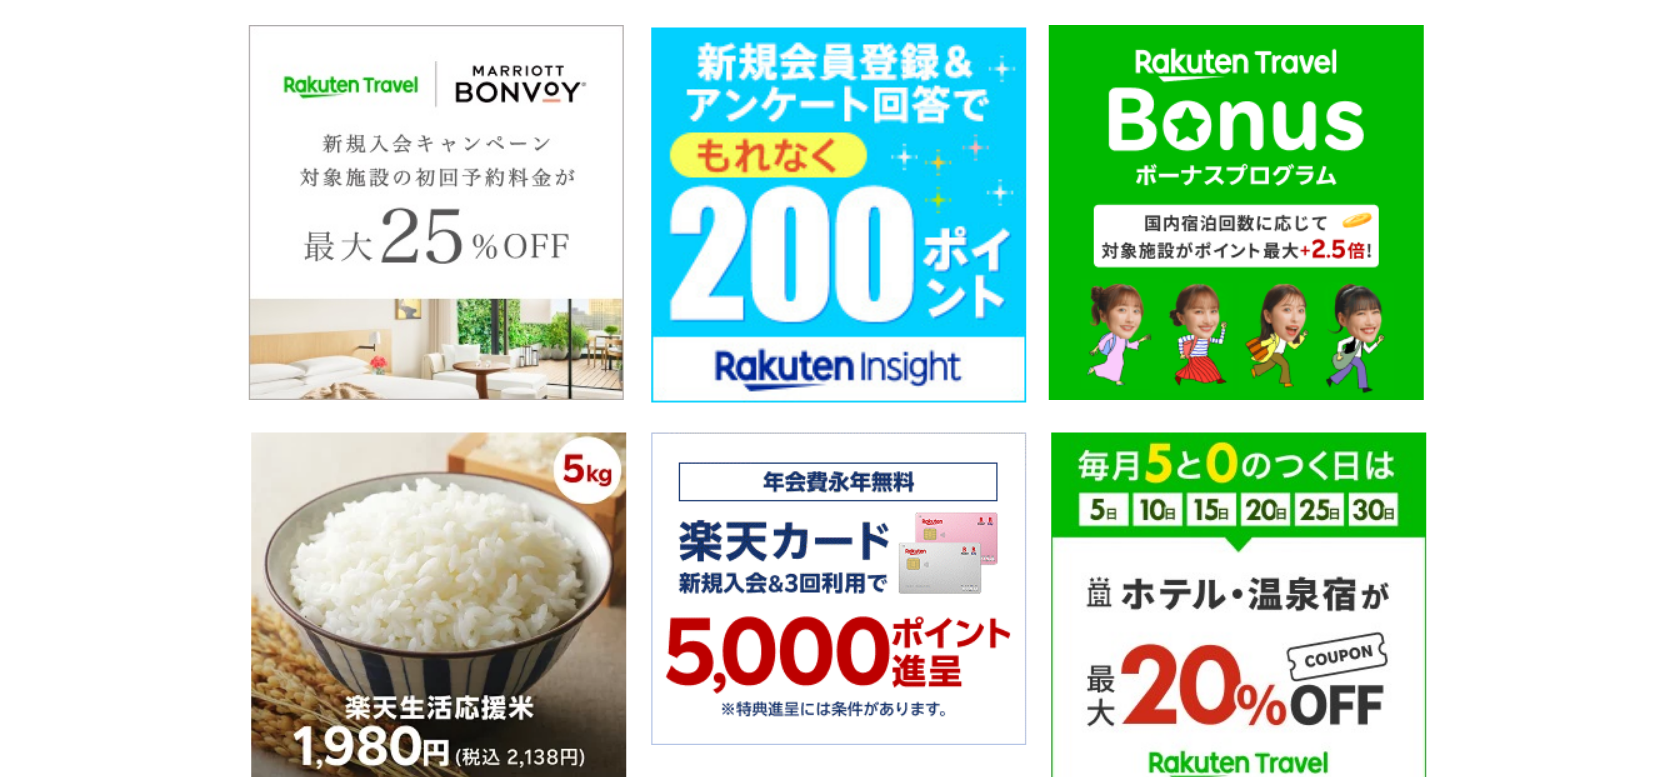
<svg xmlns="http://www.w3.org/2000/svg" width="1672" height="777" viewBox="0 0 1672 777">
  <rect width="100%" height="100%" fill="#fff"/>
  <image x="248" y="25" width="376" height="375" href="img/1.png"/>
  <image x="651" y="27" width="376" height="376" href="img/2.png"/>
  <image x="1048" y="25" width="376" height="375" href="img/3.png"/>
  <image x="251" y="432" width="376" height="345" href="img/4.png"/>
  <image x="651" y="432" width="376" height="313" href="img/5.png"/>
  <image x="1051" y="432" width="376" height="345" href="img/6.png"/>
</svg>
